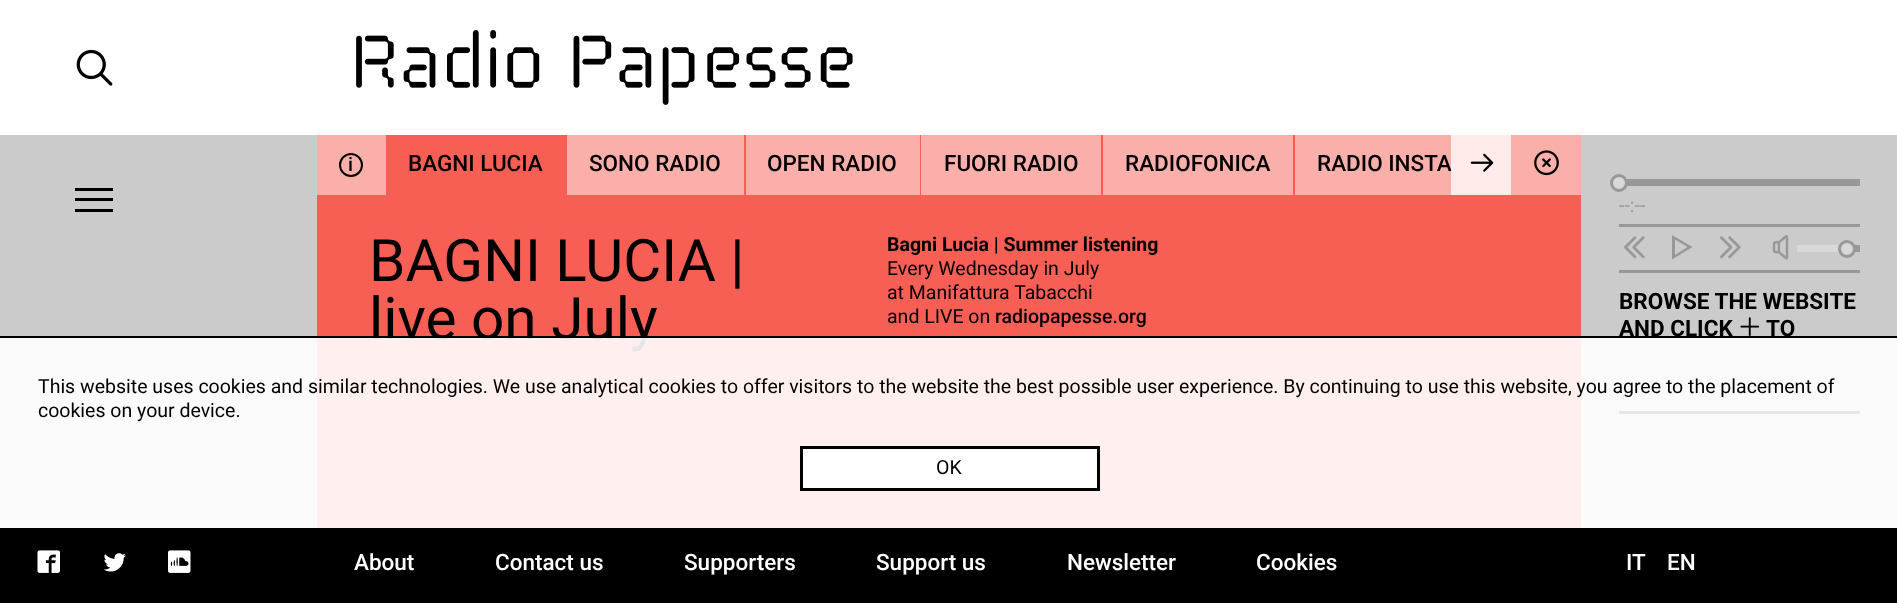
<svg xmlns="http://www.w3.org/2000/svg" width="1897" height="603" viewBox="0 0 1897 603">
  <rect width="100%" height="100%" fill="#fff"/>
  <image x="76" y="49" width="37" height="37" href="img/1.png"/>
  <image x="356" y="30" width="497" height="75" href="img/2.png"/>
  <path d="M0 135h317v393H0z" fill="#cbcbcb"/>
  <path d="M75 188h38v3H75z" fill="#000"/>
  <path d="M75 198h38v3H75z" fill="#000"/>
  <path d="M75 209h38v3H75z" fill="#000"/>
  <path d="M317 195h1264v333H317z" fill="#f75e54"/>
  <path d="M746 135h835v60H746z" fill="#fbafaa"/>
  <path d="M317 135h69v60H317z" fill="#fbafaa"/>
  <circle cx="351" cy="165" r="11" fill="none" stroke="#000" stroke-width="2"/>
  <path d="M386 135h181v60H386z" fill="#f75e54"/>
  <path d="M567 135h177v60H567z" fill="#fbafaa"/>
  <path d="M744 135h2v60H744z" fill="#f75e54"/>
  <path d="M920 135h1v60H920z" fill="#f75e54"/>
  <path d="M1101 135h2v60H1101z" fill="#f75e54"/>
  <path d="M1293 135h2v60H1293z" fill="#f75e54"/>
  <image x="1534" y="150" width="25" height="26" href="img/4.png"/>
  <path d="M1581 135h316v393H1581z" fill="#cbcbcb"/>
  <path d="M1619 270h241v3H1619z" fill="#989898"/>
  <path d="M1619 224h241v3H1619z" fill="#989898"/>
  <path d="M1619 179h241v7H1619z" fill="#989898"/>
  <circle cx="1619" cy="183" r="7.5" fill="#d8d8d8" stroke="#989898" stroke-width="3"/>
  <image x="1624" y="236" width="21" height="23" href="img/5.png"/>
  <path d="M1672 259.5V235L1692.5 247ZM1687.5 247L1675 239.5V255Z" fill="#989898"/>
  <image x="1720" y="236" width="21" height="23" href="img/6.png"/>
  <image x="1772" y="235" width="17" height="25" href="img/7.png"/>
  <path d="M1855 245h5v7H1855z" fill="#989898"/>
  <path d="M1797 245h50v7H1797z" fill="#d8d8d8"/>
  <circle cx="1847" cy="249" r="7.5" fill="#d8d8d8" stroke="#989898" stroke-width="3"/>
  <path d="M1619 411h241v3H1619z" fill="#000"/>
  <image x="1740" y="317" width="20" height="19" href="img/8.png"/>
  <path d="M0 528h1897v75H0z" fill="#000"/>
  <image x="37" y="550" width="23" height="23" href="img/9.png"/>
  <image x="103" y="553" width="23" height="19" href="img/10.png"/>
  <image x="168" y="550" width="23" height="23" href="img/11.png"/>
  <path d="M0 336h1897v2H0z" fill="#000"/>
  <text x="348" y="171" font-family="Roboto" font-size="19.5" font-weight="500" fill="#000">i</text>
  <g font-family="Roboto" font-size="22.5" font-weight="500" fill="#000">
    <text x="408" y="171">BAGNI LUCIA</text>
    <text x="589" y="171">SONO RADIO</text>
    <text x="767" y="171">OPEN RADIO</text>
    <text x="944" y="171">FUORI RADIO</text>
    <text x="1125" y="171">RADIOFONICA</text>
    <text x="1317" y="171">RADIO INSTA</text>
  </g>
  <path d="M1451 135h60v60H1451z" fill="#ffffffbf"/>
  <image x="1470" y="153" width="24" height="19" href="img/3.png"/>
  <g font-family="Roboto" font-size="58.5" fill="#000">
    <text x="369" y="281">BAGNI LUCIA |</text>
    <text x="369" y="339">live on July</text>
  </g>
  <text x="887" y="251" font-family="Roboto" font-size="19.5" font-weight="bold" fill="#000">Bagni Lucia | Summer listening</text>
  <g font-family="Roboto" font-size="19.5" fill="#000">
    <text x="887" y="275">Every Wednesday in July</text>
    <text x="887" y="299">at Manifattura Tabacchi</text>
    <text x="887" y="323">and LIVE on</text>
  </g>
  <text x="995" y="323" font-family="Roboto" font-size="19.5" font-weight="500" fill="#000">radiopapesse.org</text>
  <text x="1619" y="212" font-family="Roboto" font-size="19.5" fill="#989898">--:--</text>
  <g font-family="Roboto" font-size="22.5" font-weight="bold" fill="#000">
    <text x="1619" y="309">BROWSE THE WEBSITE</text>
    <text x="1619" y="336">AND CLICK</text>
    <text x="1766" y="336">TO</text>
  </g>
  <g font-family="Roboto" font-size="22.5" font-weight="500" fill="#fff">
    <text x="354" y="570">About</text>
    <text x="495" y="570">Contact us</text>
    <text x="684" y="570">Supporters</text>
    <text x="876" y="570">Support us</text>
    <text x="1067" y="570">Newsletter</text>
    <text x="1256" y="570">Cookies</text>
    <text x="1626" y="570">IT</text>
    <text x="1667" y="570">EN</text>
  </g>
  <path d="M0 338h1897v190H0z" fill="#ffffffe6"/>
  <g font-family="Roboto" font-size="19.5" fill="#000">
    <text x="38" y="393">This website uses cookies and similar technologies. We use analytical cookies to offer visitors to the website the best possible user experience. By continuing to use this website, you agree to the placement of</text>
    <text x="38" y="417">cookies on your device.</text>
  </g>
  <path d="M801.5 447.5h297v42H801.5z" fill="#fff" stroke="#000" stroke-width="3"/>
  <text x="936" y="474" font-family="Roboto" font-size="19.5" fill="#000">OK</text>
</svg>
